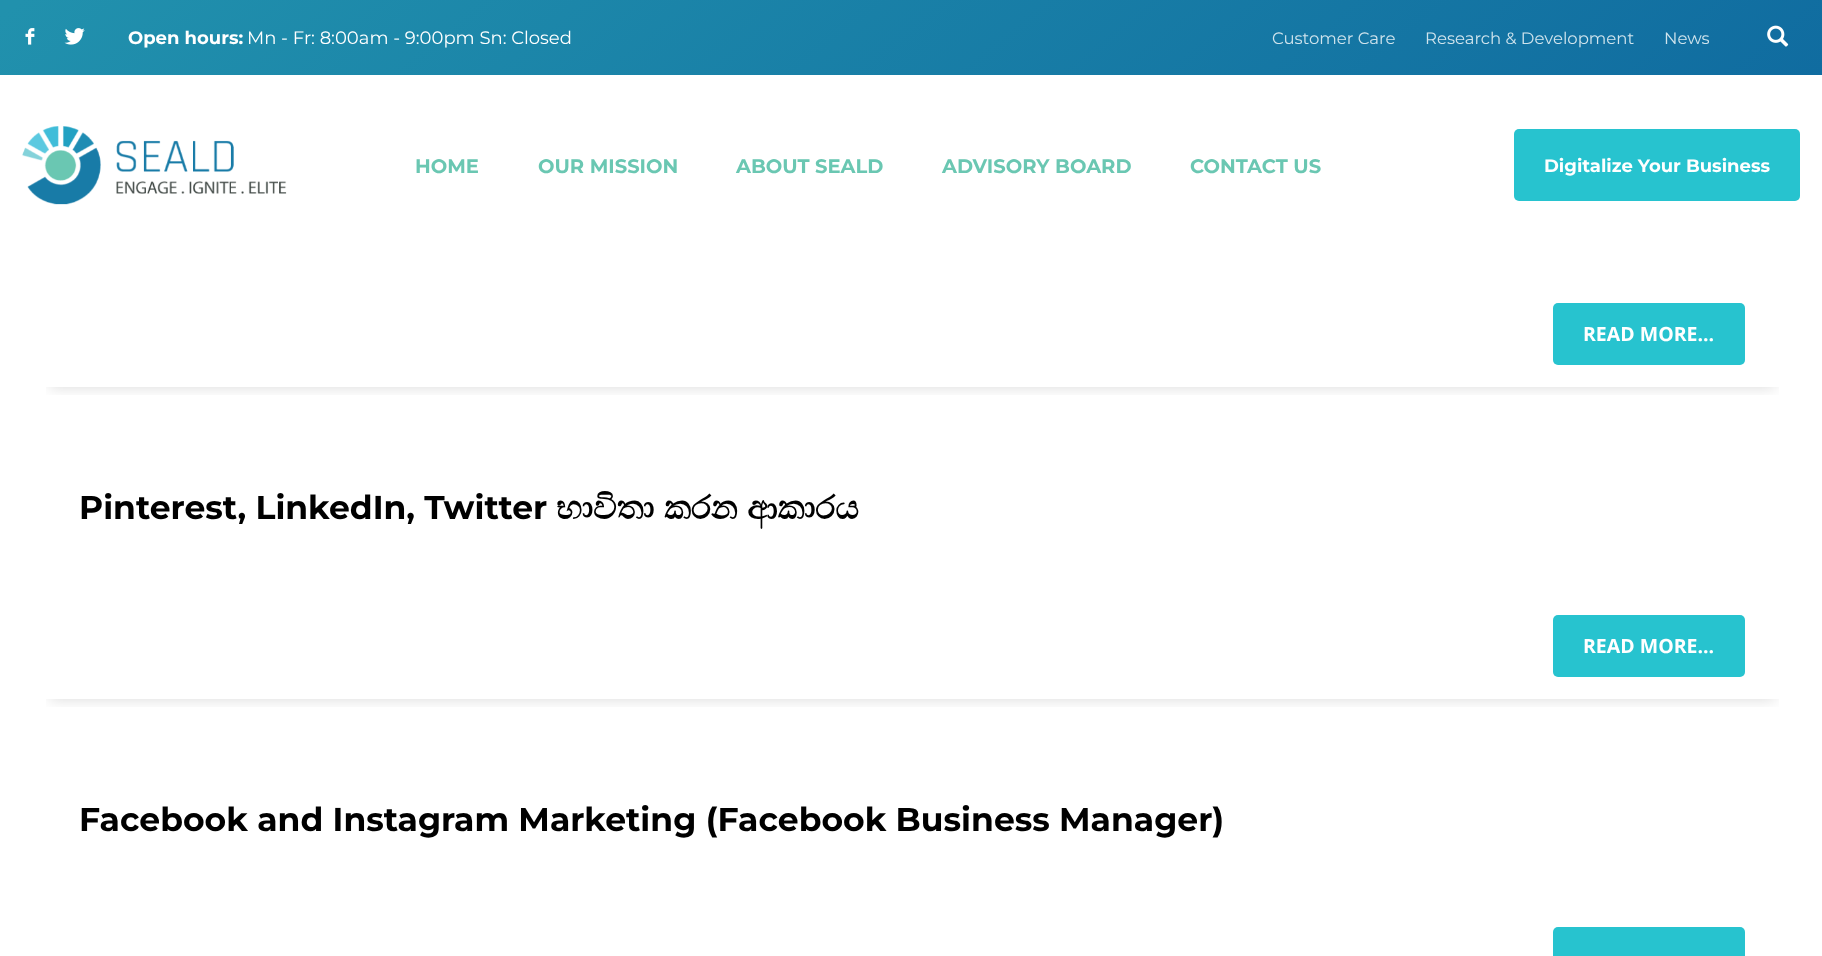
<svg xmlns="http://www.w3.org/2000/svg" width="1822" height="956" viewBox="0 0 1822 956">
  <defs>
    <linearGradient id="g1" gradientUnits="userSpaceOnUse" x1="1290" y1="506" x2="532" y2="-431"><stop offset="0" stop-color="#106ca0"/><stop offset="0.99" stop-color="#2191ad"/></linearGradient>
    <clipPath id="clip1"><path d="M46 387h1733v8H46z"/></clipPath>
    <clipPath id="clip2"><path d="M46 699h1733v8H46z"/></clipPath>
  </defs>
  <rect width="100%" height="100%" fill="#fff"/>
  <path d="M0 0h1822v75H0z" fill="url(#g1)"/>
  <image x="25" y="28" width="10" height="17" href="img/1.png"/>
  <image x="64" y="28" width="21" height="17" href="img/2.png"/>
  <image x="1767" y="25" width="22" height="22" href="img/3.png"/>
  <g clip-path="url(#clip1)">
    <path d="M50 158h1725v229H50z" fill="#00000026" filter="blur(7.5px)"/>
  </g>
  <image x="22" y="126" width="265" height="79" href="img/4.png"/>
  <rect x="1514" y="129" width="286" height="72" rx="5" fill="#27c3cf"/>
  <rect x="1553" y="303" width="192" height="62" rx="5" fill="#27c3cf"/>
  <g clip-path="url(#clip2)">
    <path d="M50 470h1725v229H50z" fill="#00000026" filter="blur(7.5px)"/>
  </g>
  <rect x="1553" y="615" width="192" height="62" rx="5" fill="#27c3cf"/>
  <rect x="1553" y="927" width="192" height="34" rx="5" fill="#27c3cf"/>
  <text x="128" y="44" font-family="Montserrat" font-size="18" font-weight="bold" fill="#fff">Open hours:</text>
  <text x="247" y="44" font-family="Montserrat" font-size="18" fill="#fff">Mn - Fr: 8:00am - 9:00pm Sn: Closed</text>
  <g font-family="Montserrat" font-size="16.5" fill="#d0e4ed">
    <text x="1272" y="44">Customer Care</text>
    <text x="1425" y="44">Research &amp; Development</text>
    <text x="1664" y="44">News</text>
  </g>
  <g font-family="Montserrat" font-size="19.5" font-weight="bold" fill="#6ac7b2">
    <text x="415" y="173">HOME</text>
    <text x="538" y="173">OUR MISSION</text>
    <text x="736" y="173">ABOUT SEALD</text>
    <text x="942" y="173">ADVISORY BOARD</text>
    <text x="1190" y="173">CONTACT US</text>
  </g>
  <text x="1544" y="172" font-family="Montserrat" font-size="18" font-weight="bold" fill="#fff">Digitalize Your Business</text>
  <text x="1583" y="341" font-family="Open Sans" font-size="19.5" font-weight="bold" fill="#fff">READ MORE...</text>
  <text x="79" y="519" font-family="Montserrat" font-size="33" font-weight="bold" fill="#000">Pinterest, LinkedIn, Twitter</text>
  <g font-family="FreeSerif" font-size="33" font-weight="bold" fill="#000">
    <text x="556" y="519">භාවිතා</text>
    <text x="664" y="519">කරන</text>
    <text x="747" y="519">ආකාරය</text>
  </g>
  <text x="1583" y="653" font-family="Open Sans" font-size="19.5" font-weight="bold" fill="#fff">READ MORE...</text>
  <text x="79" y="831" font-family="Montserrat" font-size="33" font-weight="bold" fill="#000">Facebook and Instagram Marketing (Facebook Business Manager)</text>
</svg>
